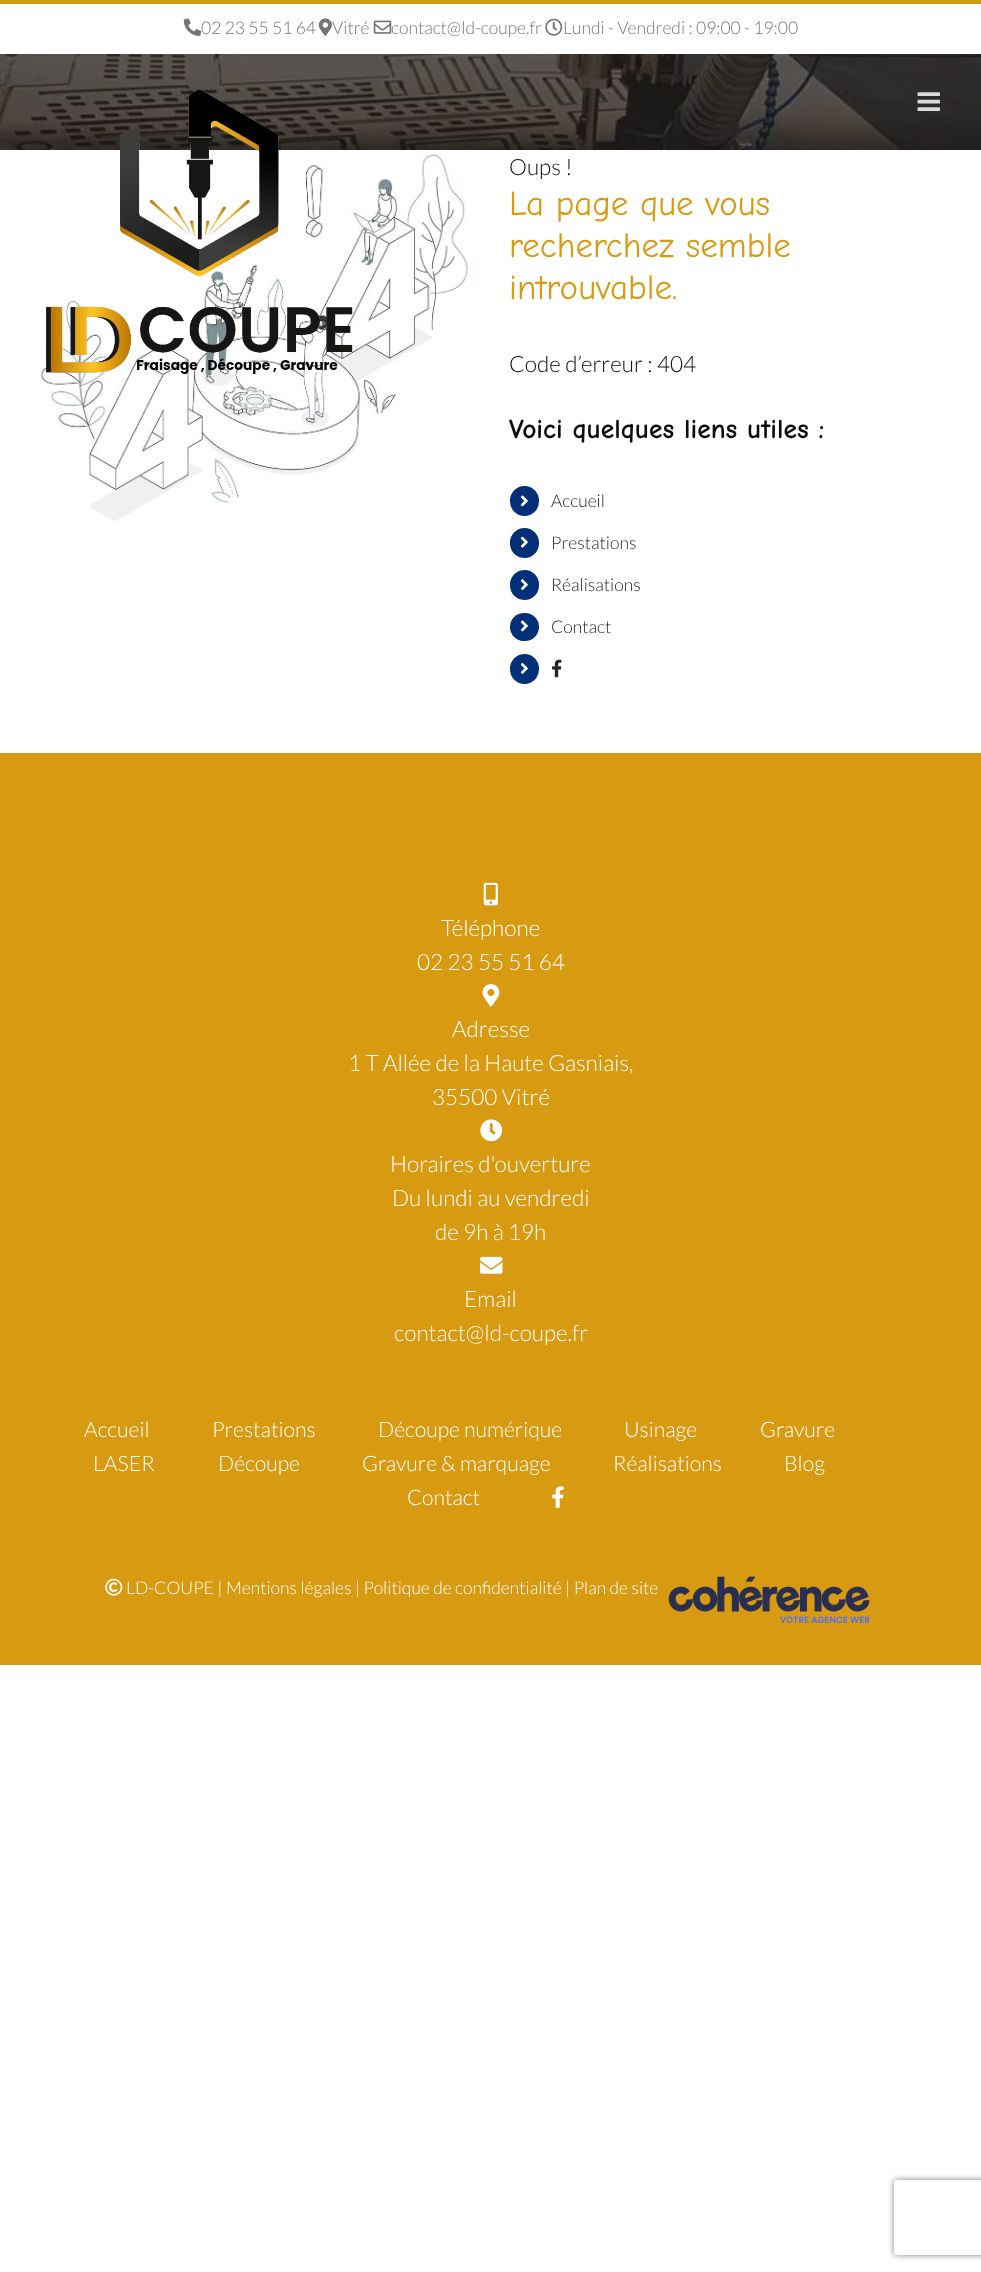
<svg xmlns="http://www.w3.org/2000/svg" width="981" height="2272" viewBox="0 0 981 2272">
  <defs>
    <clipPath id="clip1"><path d="M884 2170H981V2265H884ZM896.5 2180H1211.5C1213 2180 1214 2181 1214 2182.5V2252.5C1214 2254 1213 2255 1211.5 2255H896.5C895 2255 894 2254 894 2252.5V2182.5C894 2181 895 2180 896.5 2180Z" clip-rule="evenodd"/></clipPath>
  </defs>
  <rect width="100%" height="100%" fill="#fff"/>
  <path d="M0 0h981v4H0z" fill="#d89b10"/>
  <image x="183" y="18" width="19" height="18" href="img/1.png"/>
  <image x="318" y="18" width="14" height="18" href="img/2.png"/>
  <image x="373" y="20" width="19" height="14" href="img/3.png"/>
  <image x="545" y="18" width="18" height="18" href="img/4.png"/>
  <image x="0" y="54" width="981" height="96" href="img/7.png"/>
  <image x="41" y="154" width="429" height="367" href="img/8.png"/>
  <image x="46" y="89" width="307" height="285" href="img/5.png"/>
  <image x="917" y="92" width="23" height="19" href="img/6.png"/>
  <rect x="510" y="486" width="29" height="30" rx="14.5" fill="#012f78"/>
  <image x="520" y="495" width="8" height="12" href="img/9.png"/>
  <rect x="510" y="528" width="29" height="30" rx="14.5" fill="#012f78"/>
  <image x="520" y="536" width="8" height="12" href="img/10.png"/>
  <rect x="510" y="570" width="29" height="30" rx="14.5" fill="#012f78"/>
  <image x="520" y="579" width="8" height="12" href="img/11.png"/>
  <rect x="510" y="613" width="29" height="28" rx="14" fill="#012f78"/>
  <image x="520" y="620" width="8" height="12" href="img/9.png"/>
  <rect x="510" y="654" width="29" height="30" rx="14.5" fill="#012f78"/>
  <image x="520" y="663" width="8" height="11" href="img/12.png"/>
  <image x="552" y="659" width="10" height="19" href="img/13.png"/>
  <path d="M0 753h981v912H0z" fill="#d79a10"/>
  <image x="483" y="882" width="15" height="24" href="img/14.png"/>
  <image x="482" y="984" width="18" height="23" href="img/15.png"/>
  <image x="480" y="1119" width="23" height="23" href="img/16.png"/>
  <image x="480" y="1256" width="23" height="18" href="img/17.png"/>
  <image x="552" y="1486" width="12" height="22" href="img/18.png"/>
  <image x="105" y="1578" width="18" height="18" href="img/19.png"/>
  <image x="668" y="1576" width="202" height="47" href="img/20.png"/>
  <g clip-path="url(#clip1)">
    <rect x="894" y="2180" width="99" height="75" rx="2.5" fill="#808080" filter="blur(3px)"/>
  </g>
  <g font-family="Lato" font-size="17.5" font-weight="300" fill="#747474">
    <text x="201" y="34">02 23 55 51 64</text>
    <text x="332" y="34">Vitré</text>
    <text x="391" y="34">contact@ld-coupe.fr</text>
    <text x="563" y="34">Lundi - Vendredi : 09:00 - 19:00</text>
  </g>
  <text x="509" y="175" font-family="Lato" font-size="22.5" font-weight="300" fill="#0d0d0d">Oups !</text>
  <g font-family="Comic Neue" font-size="35" fill="#d79a10">
    <text x="509" y="215">La page que vous</text>
    <text x="509" y="257">recherchez semble</text>
    <text x="509" y="299">introuvable.</text>
  </g>
  <text x="509" y="372" font-family="Lato" font-size="22.5" font-weight="300" fill="#0d0d0d">Code d’erreur : 404</text>
  <text x="509" y="438" font-family="Comic Neue" font-size="27.5" font-weight="bold" fill="#0d0d0d">Voici quelques liens utiles :</text>
  <g font-family="Lato" font-size="17.5" font-weight="300" fill="#262626">
    <text x="551" y="507">Accueil</text>
    <text x="551" y="549">Prestations</text>
    <text x="551" y="591">Réalisations</text>
    <text x="551" y="633">Contact</text>
  </g>
  <g font-family="Lato" font-size="22.5" font-weight="300" fill="#fff">
    <text x="441" y="936">Téléphone</text>
    <text x="417" y="970">02 23 55 51 64</text>
    <text x="452" y="1037">Adresse</text>
    <text x="348" y="1071">1 T Allée de la Haute Gasniais,</text>
    <text x="432" y="1105">35500 Vitré</text>
    <text x="390" y="1172">Horaires d'ouverture</text>
    <text x="392" y="1206">Du lundi au vendredi</text>
    <text x="435" y="1240">de 9h à 19h</text>
    <text x="464" y="1307">Email</text>
    <text x="394" y="1341">contact@ld-coupe.fr</text>
  </g>
  <g font-family="Lato" font-size="21.25" font-weight="300" fill="#fff">
    <text x="84" y="1437">Accueil</text>
    <text x="212" y="1437">Prestations</text>
    <text x="378" y="1437">Découpe numérique</text>
    <text x="624" y="1437">Usinage</text>
    <text x="760" y="1437">Gravure</text>
    <text x="93" y="1471">LASER</text>
    <text x="218" y="1471">Découpe</text>
    <text x="362" y="1471">Gravure &amp; marquage</text>
    <text x="613" y="1471">Réalisations</text>
    <text x="784" y="1471">Blog</text>
    <text x="407" y="1505">Contact</text>
  </g>
  <text x="126" y="1594" font-family="Lato" font-size="17.5" font-weight="300" fill="#fff">LD-COUPE | Mentions légales | Politique de confidentialité | Plan de site</text>
</svg>
